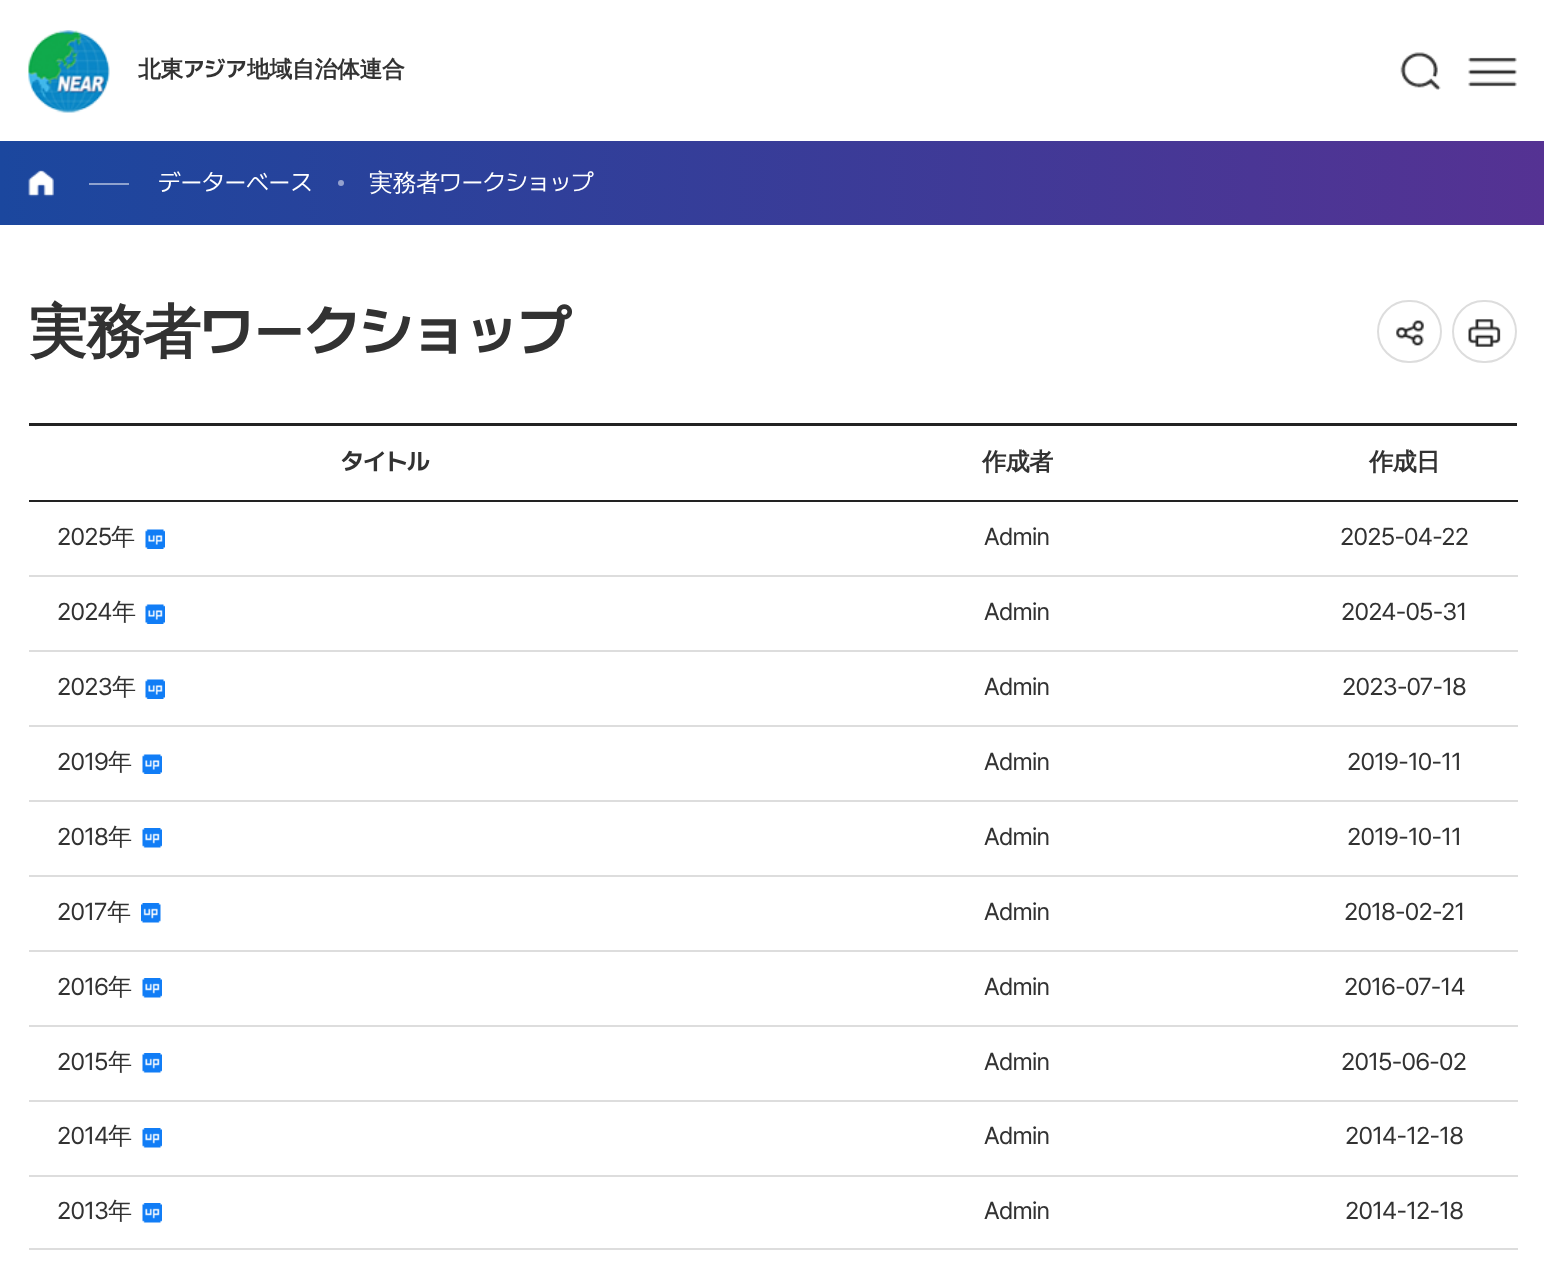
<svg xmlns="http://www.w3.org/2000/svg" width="1544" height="1275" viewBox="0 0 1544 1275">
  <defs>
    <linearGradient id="g1" gradientUnits="userSpaceOnUse" x1="0" y1="183" x2="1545" y2="183"><stop offset="0" stop-color="#1b479e"/><stop offset="1" stop-color="#553293"/></linearGradient>
  </defs>
  <rect width="100%" height="100%" fill="#fff"/>
  <image x="28" y="30" width="82" height="83" href="img/1.png"/>
  <image x="1400" y="52" width="41" height="38" href="img/2.png"/>
  <image x="1468" y="57" width="49" height="30" href="img/3.png"/>
  <path d="M0 141h1544v84H0z" fill="url(#g1)"/>
  <image x="28" y="170" width="26" height="27" href="img/4.png"/>
  <path d="M89 183h40v2H89z" fill="#8fa2ce"/>
  <circle cx="341" cy="183" r="3" fill="#94a1ce"/>
  <image x="1396" y="320" width="28" height="26" href="img/5.png"/>
  <rect x="1378" y="301" width="63" height="61" rx="30.5" fill="none" stroke="#ddd" stroke-width="2"/>
  <image x="1468" y="319" width="33" height="28" href="img/6.png"/>
  <rect x="1453" y="301" width="63" height="61" rx="30.5" fill="none" stroke="#ddd" stroke-width="2"/>
  <path d="M29 423h1488v3H29z" fill="#222"/>
  <path d="M29 500h1489v2H29z" fill="#222"/>
  <path d="M29 575h1489v2H29z" fill="#ddd"/>
  <image x="145" y="529" width="20" height="20" href="img/7.png"/>
  <path d="M29 650h1489v2H29z" fill="#ddd"/>
  <image x="145" y="604" width="20" height="20" href="img/7.png"/>
  <path d="M29 725h1489v2H29z" fill="#ddd"/>
  <image x="145" y="679" width="20" height="20" href="img/7.png"/>
  <path d="M29 800h1489v2H29z" fill="#ddd"/>
  <image x="142" y="754" width="20" height="20" href="img/7.png"/>
  <path d="M29 875h1489v2H29z" fill="#ddd"/>
  <image x="142" y="828" width="20" height="20" href="img/8.png"/>
  <path d="M29 950h1489v2H29z" fill="#ddd"/>
  <image x="141" y="903" width="20" height="20" href="img/9.png"/>
  <path d="M29 1025h1489v2H29z" fill="#ddd"/>
  <image x="142" y="978" width="20" height="20" href="img/8.png"/>
  <path d="M29 1100h1489v2H29z" fill="#ddd"/>
  <image x="142" y="1053" width="20" height="20" href="img/8.png"/>
  <path d="M29 1175h1489v2H29z" fill="#ddd"/>
  <image x="142" y="1128" width="20" height="20" href="img/8.png"/>
  <path d="M29 1248h1489v2H29z" fill="#ddd"/>
  <image x="142" y="1203" width="20" height="20" href="img/8.png"/>
  <text x="138" y="77" font-family="WenQuanYi Zen Hei" font-size="22.75" font-weight="bold" letter-spacing="-0.25" fill="#323232">北東</text>
  <text x="183" y="77" font-family="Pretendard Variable" font-size="22.75" font-weight="bold" letter-spacing="-0.25" fill="#323232">アジア</text>
  <text x="247" y="77" font-family="WenQuanYi Zen Hei" font-size="22.75" font-weight="bold" letter-spacing="-0.25" fill="#323232">地域自治体連合</text>
  <text x="158" y="191" font-family="Pretendard Variable" font-size="24.25" letter-spacing="-0.75" fill="#fff">データーベース</text>
  <text x="369" y="191" font-family="WenQuanYi Zen Hei" font-size="24.25" font-weight="500" letter-spacing="-0.75" fill="#fff">実務者</text>
  <text x="439" y="191" font-family="Pretendard Variable" font-size="24.25" letter-spacing="-0.75" fill="#fff">ワークショップ</text>
  <text x="29" y="352" font-family="WenQuanYi Zen Hei" font-size="58.5" font-weight="bold" letter-spacing="-1.75" fill="#323232">実務者</text>
  <text x="199" y="352" font-family="Pretendard Variable" font-size="58.5" font-weight="bold" letter-spacing="-1.75" fill="#323232">ワークショップ</text>
  <text x="341" y="470" font-family="Pretendard Variable" font-size="24.25" font-weight="bold" letter-spacing="-0.75" fill="#323232">タイトル</text>
  <g font-family="WenQuanYi Zen Hei" font-size="24.25" font-weight="bold" letter-spacing="-0.75" fill="#323232">
    <text x="982" y="470">作成者</text>
    <text x="1369" y="470">作成日</text>
  </g>
  <text x="57" y="545" font-family="Pretendard Variable" font-size="24.25" letter-spacing="-0.75" fill="#323232">2025</text>
  <text x="111" y="545" font-family="WenQuanYi Zen Hei" font-size="24.25" font-weight="500" letter-spacing="-0.75" fill="#323232">年</text>
  <g font-family="Pretendard Variable" font-size="24.25" letter-spacing="-0.75" fill="#323232">
    <text x="984" y="545">Admin</text>
    <text x="1340" y="545">2025-04-22</text>
    <text x="57" y="620">2024</text>
  </g>
  <text x="112" y="620" font-family="WenQuanYi Zen Hei" font-size="24.25" font-weight="500" letter-spacing="-0.75" fill="#323232">年</text>
  <g font-family="Pretendard Variable" font-size="24.25" letter-spacing="-0.75" fill="#323232">
    <text x="984" y="620">Admin</text>
    <text x="1341" y="620">2024-05-31</text>
    <text x="57" y="695">2023</text>
  </g>
  <text x="112" y="695" font-family="WenQuanYi Zen Hei" font-size="24.25" font-weight="500" letter-spacing="-0.75" fill="#323232">年</text>
  <g font-family="Pretendard Variable" font-size="24.25" letter-spacing="-0.75" fill="#323232">
    <text x="984" y="695">Admin</text>
    <text x="1342" y="695">2023-07-18</text>
    <text x="57" y="770">2019</text>
  </g>
  <text x="108" y="770" font-family="WenQuanYi Zen Hei" font-size="24.25" font-weight="500" letter-spacing="-0.75" fill="#323232">年</text>
  <g font-family="Pretendard Variable" font-size="24.25" letter-spacing="-0.75" fill="#323232">
    <text x="984" y="770">Admin</text>
    <text x="1347" y="770">2019-10-11</text>
    <text x="57" y="845">2018</text>
  </g>
  <text x="108" y="845" font-family="WenQuanYi Zen Hei" font-size="24.25" font-weight="500" letter-spacing="-0.75" fill="#323232">年</text>
  <g font-family="Pretendard Variable" font-size="24.25" letter-spacing="-0.75" fill="#323232">
    <text x="984" y="845">Admin</text>
    <text x="1347" y="845">2019-10-11</text>
    <text x="57" y="920">2017</text>
  </g>
  <text x="107" y="920" font-family="WenQuanYi Zen Hei" font-size="24.25" font-weight="500" letter-spacing="-0.75" fill="#323232">年</text>
  <g font-family="Pretendard Variable" font-size="24.25" letter-spacing="-0.75" fill="#323232">
    <text x="984" y="920">Admin</text>
    <text x="1344" y="920">2018-02-21</text>
    <text x="57" y="995">2016</text>
  </g>
  <text x="108" y="995" font-family="WenQuanYi Zen Hei" font-size="24.25" font-weight="500" letter-spacing="-0.75" fill="#323232">年</text>
  <g font-family="Pretendard Variable" font-size="24.25" letter-spacing="-0.75" fill="#323232">
    <text x="984" y="995">Admin</text>
    <text x="1344" y="995">2016-07-14</text>
    <text x="57" y="1070">2015</text>
  </g>
  <text x="108" y="1070" font-family="WenQuanYi Zen Hei" font-size="24.25" font-weight="500" letter-spacing="-0.75" fill="#323232">年</text>
  <g font-family="Pretendard Variable" font-size="24.25" letter-spacing="-0.75" fill="#323232">
    <text x="984" y="1070">Admin</text>
    <text x="1341" y="1070">2015-06-02</text>
    <text x="57" y="1144">2014</text>
  </g>
  <text x="108" y="1144" font-family="WenQuanYi Zen Hei" font-size="24.25" font-weight="500" letter-spacing="-0.75" fill="#323232">年</text>
  <g font-family="Pretendard Variable" font-size="24.25" letter-spacing="-0.75" fill="#323232">
    <text x="984" y="1144">Admin</text>
    <text x="1345" y="1144">2014-12-18</text>
    <text x="57" y="1219">2013</text>
  </g>
  <text x="108" y="1219" font-family="WenQuanYi Zen Hei" font-size="24.25" font-weight="500" letter-spacing="-0.75" fill="#323232">年</text>
  <g font-family="Pretendard Variable" font-size="24.25" letter-spacing="-0.75" fill="#323232">
    <text x="984" y="1219">Admin</text>
    <text x="1345" y="1219">2014-12-18</text>
  </g>
</svg>
